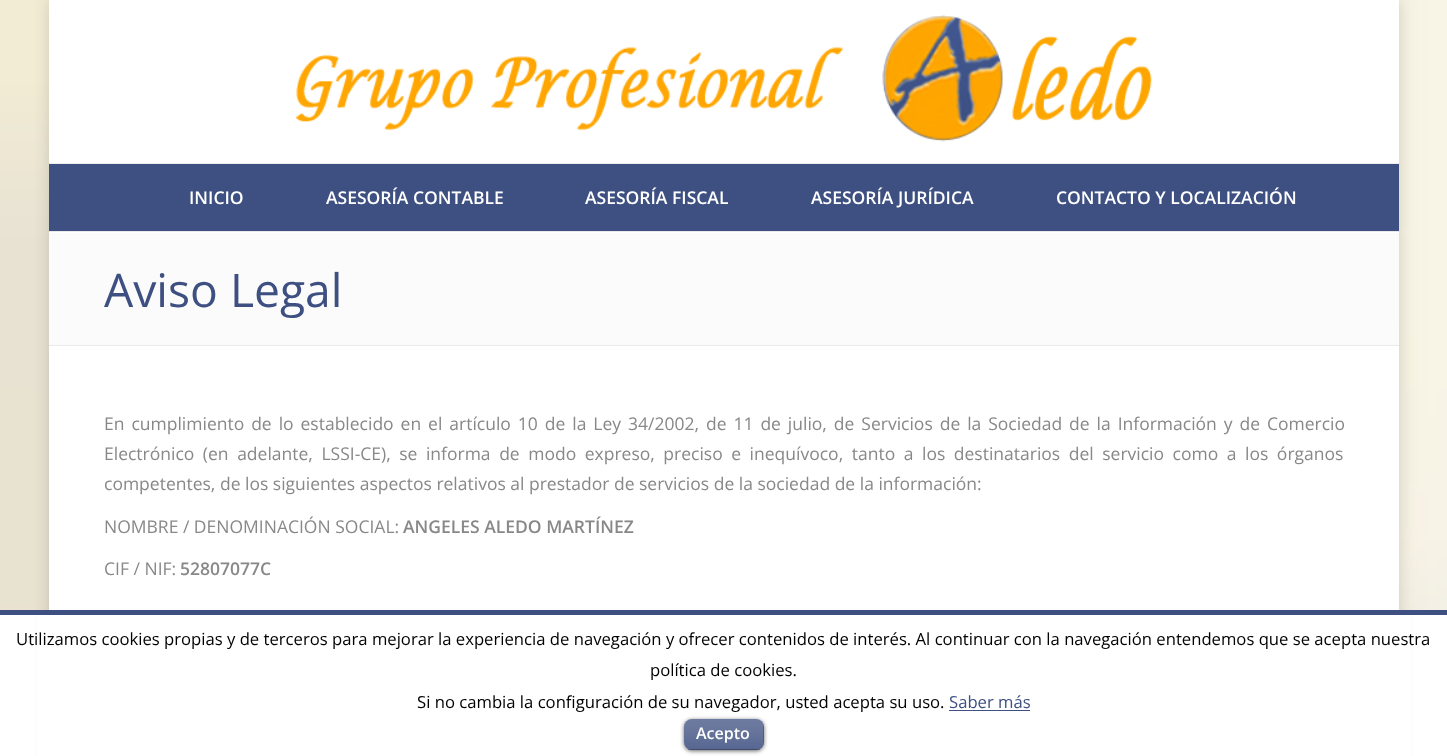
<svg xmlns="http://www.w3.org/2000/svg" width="1447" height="756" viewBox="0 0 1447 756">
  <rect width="100%" height="100%" fill="#fff"/>
  <image x="0" y="0" width="1447" height="610" href="img/1.png"/>
  <path d="M49 0h1350v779H49z" fill="#00000026" filter="blur(7.5px)"/>
  <path d="M49 0h1350v610H49z" fill="#fff"/>
  <path d="M49 231h1350v1H49z" fill="#e9e9e9"/>
  <image x="296" y="15" width="856" height="127" href="img/2.png"/>
  <path d="M49 164h1350v67H49z" fill="#3e5081"/>
  <path d="M49 163h1350v1H49z" fill="#ededed"/>
  <path d="M49 233h1350v112H49z" fill="#fbfbfb"/>
  <path d="M49 345h1350v1H49z" fill="#eaeaea"/>
  <path d="M38 615h1372v141H38z" fill="#fff"/>
  <path d="M0 610h1447v5H0z" fill="#3e5081"/>
  <path d="M949 710h81v1H949z" fill="#3e5081"/>
  <rect x="684" y="720" width="80" height="31" rx="8" fill="#00000099" filter="blur(2px)"/>
  <rect x="684" y="719" width="80" height="31" rx="8" fill="#3e5081"/>
  <image x="684" y="719" width="80" height="31" href="img/3.png"/>
  <path d="M688 749h72v1H688z" fill="#00000040"/>
  <g font-family="Open Sans" font-size="17.5" font-weight="600" fill="#fff">
    <text x="189" y="204">INICIO</text>
    <text x="326" y="204">ASESORÍA CONTABLE</text>
    <text x="585" y="204">ASESORÍA FISCAL</text>
    <text x="811" y="204">ASESORÍA JURÍDICA</text>
    <text x="1056" y="204">CONTACTO Y LOCALIZACIÓN</text>
  </g>
  <text x="104" y="307" font-family="Open Sans" font-size="46.25" fill="#3e5081">Aviso Legal</text>
  <g font-family="Open Sans" font-size="17.5" fill="#888">
    <text x="104" y="430" word-spacing="2.4">En cumplimiento de lo establecido en el artículo 10 de la Ley 34/2002, de 11 de julio, de Servicios de la Sociedad de la Información y de Comercio</text>
    <text x="104" y="460" word-spacing="4">Electrónico (en adelante, LSSI-CE), se informa de modo expreso, preciso e inequívoco, tanto a los destinatarios del servicio como a los órganos</text>
    <text x="104" y="490">competentes, de los siguientes aspectos relativos al prestador de servicios de la sociedad de la información:</text>
    <text x="104" y="533">NOMBRE / DENOMINACIÓN SOCIAL:</text>
  </g>
  <text x="403" y="533" font-family="Open Sans" font-size="17.5" font-weight="600" fill="#888">ANGELES ALEDO MARTÍNEZ</text>
  <text x="104" y="575" font-family="Open Sans" font-size="17.5" fill="#888">CIF / NIF:</text>
  <text x="180" y="575" font-family="Open Sans" font-size="17.5" font-weight="600" fill="#888">52807077C</text>
  <g font-family="Open Sans" font-size="16.67" fill="#000">
    <text x="16" y="645">Utilizamos cookies propias y de terceros para mejorar la experiencia de navegación y ofrecer contenidos de interés. Al continuar con la navegación entendemos que se acepta nuestra</text>
    <text x="650" y="676">política de cookies.</text>
    <text x="417" y="708">Si no cambia la configuración de su navegador, usted acepta su uso.</text>
  </g>
  <text x="949" y="708" font-family="Open Sans" font-size="16.67" fill="#3e5081">Saber más</text>
  <text x="696" y="739" font-family="Open Sans" font-size="16" font-weight="600" fill="#fff">Acepto</text>
</svg>
